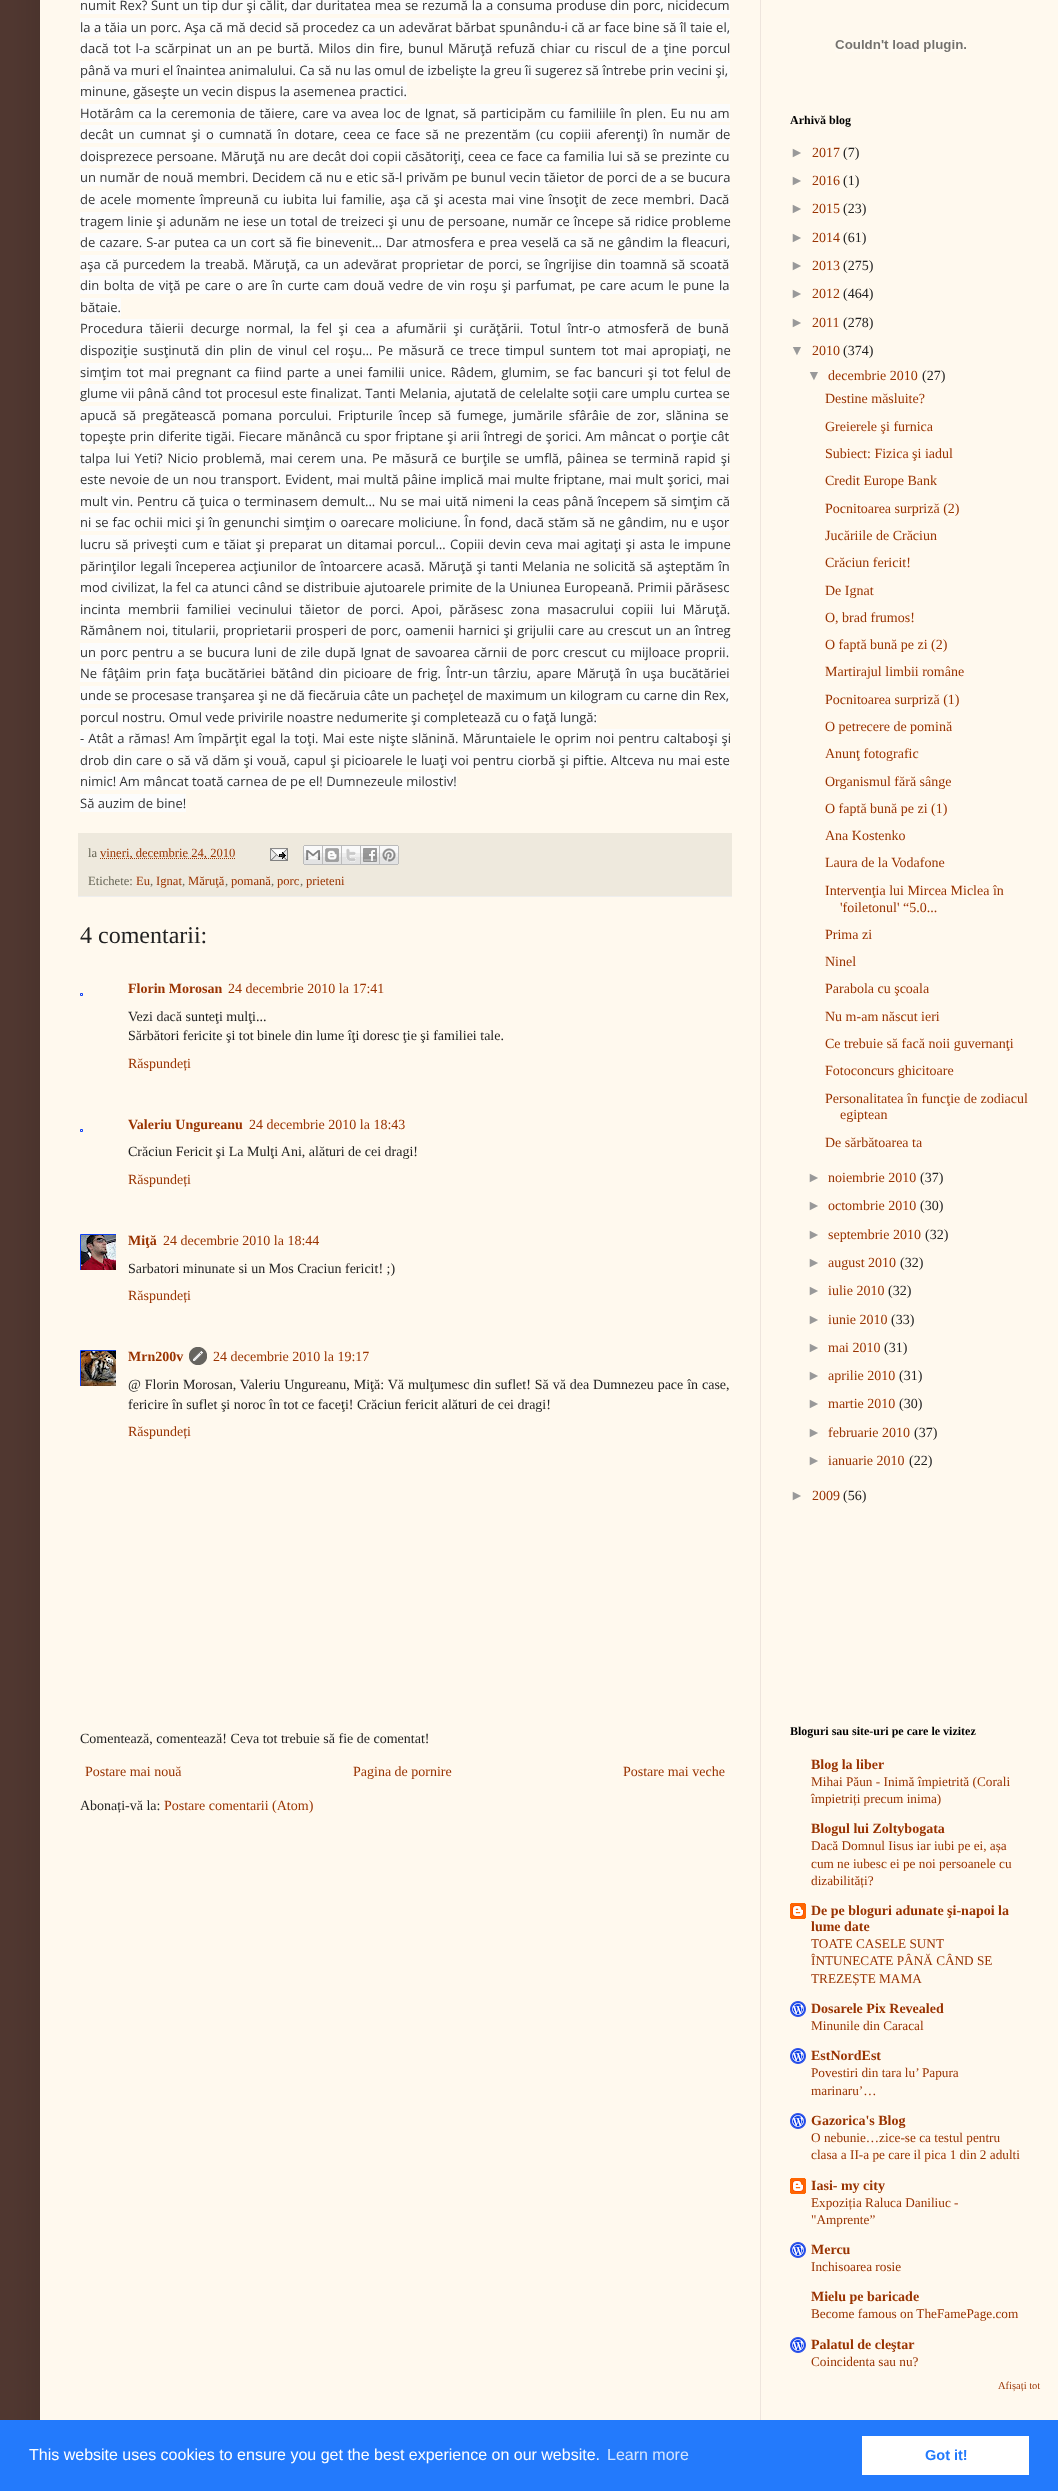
<svg xmlns="http://www.w3.org/2000/svg" width="1058" height="2491" viewBox="0 0 1058 2491">
  <defs>
    <clipPath id="clip1"><path d="M80 1234h36v36H80z"/></clipPath>
    <clipPath id="clip2"><path d="M80 1350h36v36H80z"/></clipPath>
  </defs>
  <rect width="100%" height="100%" fill="#513831"/>
  <path d="M40 -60h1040v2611H40z" fill="#00000026" filter="blur(20px)"/>
  <path d="M40 0h1018v2420H40z" fill="#fff9ee"/>
  <path d="M80 0h650v14H80z" fill="#fcfcfc"/>
  <path d="M80 18h650v18H80z" fill="#fcfcfc"/>
  <path d="M80 39h650v18H80z" fill="#fcfcfc"/>
  <path d="M80 61h650v18H80z" fill="#fcfcfc"/>
  <path d="M80 82h327v18H80z" fill="#fcfcfc"/>
  <path d="M80 104h650v18H80z" fill="#fcfcfc"/>
  <path d="M80 125h650v18H80z" fill="#fcfcfc"/>
  <path d="M80 147h650v18H80z" fill="#fcfcfc"/>
  <path d="M80 168h650v18H80z" fill="#fcfcfc"/>
  <path d="M80 190h650v18H80z" fill="#fcfcfc"/>
  <path d="M80 212h650v18H80z" fill="#fcfcfc"/>
  <path d="M80 233h650v18H80z" fill="#fcfcfc"/>
  <path d="M80 255h650v18H80z" fill="#fcfcfc"/>
  <path d="M80 276h650v18H80z" fill="#fcfcfc"/>
  <path d="M80 298h41v18H80z" fill="#fcfcfc"/>
  <path d="M80 319h650v18H80z" fill="#fcfcfc"/>
  <path d="M80 341h650v18H80z" fill="#fcfcfc"/>
  <path d="M80 363h650v18H80z" fill="#fcfcfc"/>
  <path d="M80 384h650v18H80z" fill="#fcfcfc"/>
  <path d="M80 406h650v18H80z" fill="#fcfcfc"/>
  <path d="M80 427h650v18H80z" fill="#fcfcfc"/>
  <path d="M80 449h650v18H80z" fill="#fcfcfc"/>
  <path d="M80 470h650v18H80z" fill="#fcfcfc"/>
  <path d="M80 492h650v18H80z" fill="#fcfcfc"/>
  <path d="M80 513h650v18H80z" fill="#fcfcfc"/>
  <path d="M80 535h650v18H80z" fill="#fcfcfc"/>
  <path d="M80 557h650v18H80z" fill="#fcfcfc"/>
  <path d="M80 578h650v18H80z" fill="#fcfcfc"/>
  <path d="M80 600h650v18H80z" fill="#fcfcfc"/>
  <path d="M80 621h650v18H80z" fill="#fcfcfc"/>
  <path d="M80 643h650v18H80z" fill="#fcfcfc"/>
  <path d="M80 664h650v18H80z" fill="#fcfcfc"/>
  <path d="M80 686h650v18H80z" fill="#fcfcfc"/>
  <path d="M80 708h517v18H80z" fill="#fcfcfc"/>
  <path d="M80 729h650v18H80z" fill="#fcfcfc"/>
  <path d="M80 751h650v18H80z" fill="#fcfcfc"/>
  <path d="M80 772h377v18H80z" fill="#fcfcfc"/>
  <path d="M80 794h106v18H80z" fill="#fcfcfc"/>
  <path d="M78 833h654v63H78z" fill="#eee9dd"/>
  <path d="M78 896h654v1H78z" fill="#eee"/>
  <path d="M100 858.5H235.5" fill="none" stroke="#930" stroke-dasharray="1 1"/>
  <image x="270" y="848" width="18" height="13" href="img/1.png"/>
  <image x="303" y="845" width="20" height="20" href="img/2.png"/>
  <image x="323" y="845" width="19" height="20" href="img/3.png"/>
  <image x="342" y="845" width="19" height="20" href="img/4.png"/>
  <image x="361" y="845" width="19" height="20" href="img/5.png"/>
  <image x="380" y="845" width="19" height="20" href="img/6.png"/>
  <path d="M80.5 993.5h2v2H80.5z" fill="none" stroke="#0e40f6"/>
  <path d="M80.5 1129.5h2v2H80.5z" fill="none" stroke="#0e40f6"/>
  <g clip-path="url(#clip1)">
    <path d="M80.5 1234.5h36v36H80.5z" fill="none" stroke="#0e40f6"/>
  </g>
  <image x="81" y="1235" width="35" height="35" href="img/7.png"/>
  <g clip-path="url(#clip2)">
    <path d="M80.5 1350.5h36v36H80.5z" fill="none" stroke="#0e40f6"/>
  </g>
  <image x="81" y="1351" width="35" height="35" href="img/8.png"/>
  <image x="189" y="1347" width="18" height="18" href="img/9.png"/>
  <image x="835" y="40" width="131" height="12" href="img/10.png"/>
  <image x="790" y="1903" width="16" height="16" href="img/11.png"/>
  <image x="790" y="2001" width="16" height="16" href="img/12.png"/>
  <image x="790" y="2048" width="16" height="16" href="img/12.png"/>
  <image x="790" y="2113" width="16" height="16" href="img/12.png"/>
  <image x="790" y="2178" width="16" height="16" href="img/11.png"/>
  <image x="790" y="2242" width="16" height="16" href="img/12.png"/>
  <image x="790" y="2337" width="16" height="16" href="img/12.png"/>
  <path d="M760 0h1v2420H760z" fill="#eee5dd"/>
  <path d="M0 2420h1058v71H0z" fill="#237afc"/>
  <path d="M862 2436h167v39H862z" fill="#fff"/>
  <g font-family="Open Sans" font-size="13" fill="#333">
    <text x="80" y="10" word-spacing="0.3">numit Rex? Sunt un tip dur şi călit, dar duritatea mea se rezumă la a consuma produse din porc, nicidecum</text>
    <text x="80" y="32" word-spacing="0.15">la a tăia un porc. Aşa că mă decid să procedez ca un adevărat bărbat spunându-i că ar face bine să îl taie el,</text>
    <text x="80" y="53" word-spacing="1.5">dacă tot l-a scărpinat un an pe burtă. Milos din fire, bunul Măruţă refuză chiar cu riscul de a ţine porcul</text>
    <text x="80" y="75">până va muri el înaintea animalului. Ca să nu las omul de izbelişte la greu îi sugerez să întrebe prin vecini şi,</text>
    <text x="80" y="96">minune, găseşte un vecin dispus la asemenea practici.</text>
    <text x="80" y="118" word-spacing="1">Hotărâm ca la ceremonia de tăiere, care va avea loc de Ignat, să participăm cu familiile în plen. Eu nu am</text>
    <text x="80" y="139" word-spacing="1.9">decât un cumnat şi o cumnată în dotare, ceea ce face să ne prezentăm (cu copiii aferenţi) în număr de</text>
    <text x="80" y="161" word-spacing="0.5">doisprezece persoane. Măruţă nu are decât doi copii căsătoriţi, ceea ce face ca familia lui să se prezinte cu</text>
    <text x="80" y="182" word-spacing="0.2">un număr de nouă membri. Decidem că nu e etic să-l privăm pe bunul vecin tăietor de porci de a se bucura</text>
    <text x="80" y="204" word-spacing="1.4">de acele momente împreună cu iubita lui familie, aşa că şi acesta mai vine însoţit de zece membri. Dacă</text>
    <text x="80" y="226" word-spacing="0.4">tragem linie şi adunăm ne iese un total de treizeci şi unu de persoane, număr ce începe să ridice probleme</text>
    <text x="80" y="247" word-spacing="0.7">de cazare. S-ar putea ca un cort să fie binevenit... Dar atmosfera e prea veselă ca să ne gândim la fleacuri,</text>
    <text x="80" y="269" word-spacing="1.25">aşa că purcedem la treabă. Măruţă, ca un adevărat proprietar de porci, se îngrijise din toamnă să scoată</text>
    <text x="80" y="290" word-spacing="1.1">din bolta de viţă pe care o are în curte cam două vedre de vin roşu şi parfumat, pe care acum le pune la</text>
    <text x="80" y="312">bătaie.</text>
    <text x="80" y="333" word-spacing="3.25">Procedura tăierii decurge normal, la fel şi cea a afumării şi curăţării. Totul într-o atmosferă de bună</text>
    <text x="80" y="355" word-spacing="2.1">dispoziţie susţinută din plin de vinul cel roşu… Pe măsură ce trece timpul suntem tot mai apropiaţi, ne</text>
    <text x="80" y="377" word-spacing="1.6">simţim tot mai pregnant ca fiind parte a unei familii unice. Râdem, glumim, se fac bancuri şi tot felul de</text>
    <text x="80" y="398" word-spacing="0.3">glume vii până când tot procesul este finalizat. Tanti Melania, ajutată de celelalte soţii care umplu curtea se</text>
    <text x="80" y="420" word-spacing="2.75">apucă să pregătească pomana porcului. Fripturile încep să fumege, jumările sfârâie de zor, slănina se</text>
    <text x="80" y="441" word-spacing="0.6">topeşte prin diferite tigăi. Fiecare mănâncă cu spor friptane şi arii întregi de şorici. Am mâncat o porţie cât</text>
    <text x="80" y="463" word-spacing="1.5">talpa lui Yeti? Nicio problemă, mai cerem una. Pe măsură ce burţile se umflă, pâinea se termină rapid şi</text>
    <text x="80" y="484" word-spacing="0.6">este nevoie de un nou transport. Evident, mai multă pâine implică mai multe friptane, mai mult şorici, mai</text>
    <text x="80" y="506" word-spacing="0.6">mult vin. Pentru că ţuica o terminasem demult... Nu se mai uită nimeni la ceas până începem să simţim că</text>
    <text x="80" y="527" word-spacing="0.5">ni se fac ochii mici şi în genunchi simţim o oarecare moliciune. În fond, dacă stăm să ne gândim, nu e uşor</text>
    <text x="80" y="549" word-spacing="1">lucru să priveşti cum e tăiat şi preparat un ditamai porcul… Copiii devin ceva mai agitaţi şi asta le impune</text>
    <text x="80" y="571" word-spacing="0.75">părinţilor legali începerea acţiunilor de întoarcere acasă. Măruţă şi tanti Melania ne solicită să aşteptăm în</text>
    <text x="80" y="592" word-spacing="0.25">mod civilizat, la fel ca atunci când se distribuie ajutoarele primite de la Uniunea Europeană. Primii părăsesc</text>
    <text x="80" y="614" word-spacing="4.1">incinta membrii familiei vecinului tăietor de porci. Apoi, părăsesc zona masacrului copiii lui Măruţă.</text>
    <text x="80" y="635" word-spacing="0.75">Rămânem noi, titularii, proprietarii prosperi de porc, oamenii harnici şi grijulii care au crescut un an întreg</text>
    <text x="80" y="657" word-spacing="1">un porc pentru a se bucura luni de zile după Ignat de savoarea cărnii de porc crescut cu mijloace proprii.</text>
    <text x="80" y="678" word-spacing="1.9">Ne fâţâim prin faţa bucătăriei bătând din picioare de frig. Într-un târziu, apare Măruţă în uşa bucătăriei</text>
    <text x="80" y="700">unde se procesase tranşarea şi ne dă fiecăruia câte un pacheţel de maximum un kilogram cu carne din Rex,</text>
    <text x="80" y="722">porcul nostru. Omul vede privirile noastre nedumerite şi completează cu o faţă lungă:</text>
    <text x="80" y="743" word-spacing="0.75">- Atât a rămas! Am împărţit egal la toţi. Mai este nişte slănină. Măruntaiele le oprim noi pentru caltaboşi şi</text>
    <text x="80" y="765" word-spacing="0.5">drob din care o să vă dăm şi vouă, capul şi picioarele le luaţi voi pentru ciorbă şi piftie. Altceva nu mai este</text>
    <text x="80" y="786">nimic! Am mâncat toată carnea de pe el! Dumnezeule milostiv!</text>
    <text x="80" y="808">Să auzim de bine!</text>
  </g>
  <text x="88" y="857" font-family="Liberation Serif" font-size="12.6" fill="#666555">la</text>
  <text x="100" y="857" font-family="Liberation Serif" font-size="12.6" fill="#930">vineri, decembrie 24, 2010</text>
  <text x="88" y="885" font-family="Liberation Serif" font-size="12.6" fill="#666555">Etichete:</text>
  <text x="136" y="885" font-family="Liberation Serif" font-size="12.6" fill="#930">Eu</text>
  <text x="150" y="885" font-family="Liberation Serif" font-size="12.6" fill="#666555">,</text>
  <text x="156" y="885" font-family="Liberation Serif" font-size="12.6" fill="#930">Ignat</text>
  <text x="182" y="885" font-family="Liberation Serif" font-size="12.6" fill="#666555">,</text>
  <text x="188" y="885" font-family="Liberation Serif" font-size="12.6" fill="#930">Măruţă</text>
  <text x="225" y="885" font-family="Liberation Serif" font-size="12.6" fill="#666555">,</text>
  <text x="231" y="885" font-family="Liberation Serif" font-size="12.6" fill="#930">pomană</text>
  <text x="271" y="885" font-family="Liberation Serif" font-size="12.6" fill="#666555">,</text>
  <text x="277" y="885" font-family="Liberation Serif" font-size="12.6" fill="#930">porc</text>
  <text x="300" y="885" font-family="Liberation Serif" font-size="12.6" fill="#666555">,</text>
  <text x="306" y="885" font-family="Liberation Serif" font-size="12.6" fill="#930">prieteni</text>
  <text x="80" y="943" font-family="Liberation Serif" font-size="24" fill="#222">4 comentarii:</text>
  <text x="128" y="993" font-family="Liberation Serif" font-size="14" font-weight="bold" fill="#930">Florin Morosan</text>
  <text x="228" y="993" font-family="Liberation Serif" font-size="14" fill="#930">24 decembrie 2010 la 17:41</text>
  <g font-family="Liberation Serif" font-size="14" fill="#222">
    <text x="128" y="1021">Vezi dacă sunteţi mulţi...</text>
    <text x="128" y="1040">Sărbători fericite şi tot binele din lume îţi doresc ţie şi familiei tale.</text>
  </g>
  <text x="128" y="1068" font-family="Liberation Serif" font-size="14" fill="#930">Răspundeți</text>
  <text x="128" y="1129" font-family="Liberation Serif" font-size="14" font-weight="bold" fill="#930">Valeriu Ungureanu</text>
  <text x="249" y="1129" font-family="Liberation Serif" font-size="14" fill="#930">24 decembrie 2010 la 18:43</text>
  <text x="128" y="1156" font-family="Liberation Serif" font-size="14" fill="#222">Crăciun Fericit şi La Mulţi Ani, alături de cei dragi!</text>
  <text x="128" y="1184" font-family="Liberation Serif" font-size="14" fill="#930">Răspundeți</text>
  <text x="128" y="1245" font-family="Liberation Serif" font-size="14" font-weight="bold" fill="#930">Miţă</text>
  <text x="163" y="1245" font-family="Liberation Serif" font-size="14" fill="#930">24 decembrie 2010 la 18:44</text>
  <text x="128" y="1273" font-family="Liberation Serif" font-size="14" fill="#222">Sarbatori minunate si un Mos Craciun fericit! ;)</text>
  <text x="128" y="1300" font-family="Liberation Serif" font-size="14" fill="#930">Răspundeți</text>
  <text x="128" y="1361" font-family="Liberation Serif" font-size="14" font-weight="bold" fill="#930">Mrn200v</text>
  <text x="213" y="1361" font-family="Liberation Serif" font-size="14" fill="#930">24 decembrie 2010 la 19:17</text>
  <g font-family="Liberation Serif" font-size="14" fill="#222">
    <text x="128" y="1389" word-spacing="0.4">@ Florin Morosan, Valeriu Ungureanu, Miţă: Vă mulţumesc din suflet! Să vă dea Dumnezeu pace în case,</text>
    <text x="128" y="1409">fericire în suflet şi noroc în tot ce faceţi! Crăciun fericit alături de cei dragi!</text>
  </g>
  <text x="128" y="1436" font-family="Liberation Serif" font-size="14" fill="#930">Răspundeți</text>
  <text x="80" y="1743" font-family="Liberation Serif" font-size="14" fill="#222">Comentează, comentează! Ceva tot trebuie să fie de comentat!</text>
  <g font-family="Liberation Serif" font-size="14" fill="#930">
    <text x="85" y="1776">Postare mai nouă</text>
    <text x="353" y="1776">Pagina de pornire</text>
    <text x="623" y="1776">Postare mai veche</text>
  </g>
  <text x="80" y="1810" font-family="Liberation Serif" font-size="14" fill="#222">Abonați-vă la:</text>
  <text x="164" y="1810" font-family="Liberation Serif" font-size="14" fill="#930">Postare comentarii (Atom)</text>
  <text x="790" y="124" font-family="Liberation Serif" font-size="12" font-weight="bold" fill="#000">Arhivă blog</text>
  <text x="790" y="157" font-family="Liberation Sans" font-size="14" fill="#999">►</text>
  <text x="812" y="157" font-family="Liberation Serif" font-size="14" fill="#930">2017</text>
  <text x="843" y="157" font-family="Liberation Serif" font-size="14" fill="#222">(7)</text>
  <text x="790" y="185" font-family="Liberation Sans" font-size="14" fill="#999">►</text>
  <text x="812" y="185" font-family="Liberation Serif" font-size="14" fill="#930">2016</text>
  <text x="843" y="185" font-family="Liberation Serif" font-size="14" fill="#222">(1)</text>
  <text x="790" y="213" font-family="Liberation Sans" font-size="14" fill="#999">►</text>
  <text x="812" y="213" font-family="Liberation Serif" font-size="14" fill="#930">2015</text>
  <text x="843" y="213" font-family="Liberation Serif" font-size="14" fill="#222">(23)</text>
  <text x="790" y="242" font-family="Liberation Sans" font-size="14" fill="#999">►</text>
  <text x="812" y="242" font-family="Liberation Serif" font-size="14" fill="#930">2014</text>
  <text x="843" y="242" font-family="Liberation Serif" font-size="14" fill="#222">(61)</text>
  <text x="790" y="270" font-family="Liberation Sans" font-size="14" fill="#999">►</text>
  <text x="812" y="270" font-family="Liberation Serif" font-size="14" fill="#930">2013</text>
  <text x="843" y="270" font-family="Liberation Serif" font-size="14" fill="#222">(275)</text>
  <text x="790" y="298" font-family="Liberation Sans" font-size="14" fill="#999">►</text>
  <text x="812" y="298" font-family="Liberation Serif" font-size="14" fill="#930">2012</text>
  <text x="843" y="298" font-family="Liberation Serif" font-size="14" fill="#222">(464)</text>
  <text x="790" y="327" font-family="Liberation Sans" font-size="14" fill="#999">►</text>
  <text x="812" y="327" font-family="Liberation Serif" font-size="14" fill="#930">2011</text>
  <text x="843" y="327" font-family="Liberation Serif" font-size="14" fill="#222">(278)</text>
  <text x="790" y="355" font-family="Liberation Sans" font-size="14" fill="#999">▼</text>
  <text x="812" y="355" font-family="Liberation Serif" font-size="14" fill="#930">2010</text>
  <text x="843" y="355" font-family="Liberation Serif" font-size="14" fill="#222">(374)</text>
  <text x="807" y="380" font-family="Liberation Sans" font-size="14" fill="#999">▼</text>
  <text x="828" y="380" font-family="Liberation Serif" font-size="14" fill="#930">decembrie 2010</text>
  <text x="922" y="380" font-family="Liberation Serif" font-size="14" fill="#222">(27)</text>
  <g font-family="Liberation Serif" font-size="14" fill="#930">
    <text x="825" y="403">Destine măsluite?</text>
    <text x="825" y="431">Greierele şi furnica</text>
    <text x="825" y="458">Subiect: Fizica şi iadul</text>
    <text x="825" y="485">Credit Europe Bank</text>
    <text x="825" y="513">Pocnitoarea surpriză (2)</text>
    <text x="825" y="540">Jucăriile de Crăciun</text>
    <text x="825" y="567">Crăciun fericit!</text>
    <text x="825" y="595">De Ignat</text>
    <text x="825" y="622">O, brad frumos!</text>
    <text x="825" y="649">O faptă bună pe zi (2)</text>
    <text x="825" y="676">Martirajul limbii române</text>
    <text x="825" y="704">Pocnitoarea surpriză (1)</text>
    <text x="825" y="731">O petrecere de pomină</text>
    <text x="825" y="758">Anunţ fotografic</text>
    <text x="825" y="786">Organismul fără sânge</text>
    <text x="825" y="813">O faptă bună pe zi (1)</text>
    <text x="825" y="840">Ana Kostenko</text>
    <text x="825" y="867">Laura de la Vodafone</text>
    <text x="825" y="895">Intervenţia lui Mircea Miclea în</text>
    <text x="840" y="912">'foiletonul' “5.0...</text>
    <text x="825" y="939">Prima zi</text>
    <text x="825" y="966">Ninel</text>
    <text x="825" y="993">Parabola cu şcoala</text>
    <text x="825" y="1021">Nu m-am născut ieri</text>
    <text x="825" y="1048">Ce trebuie să facă noii guvernanţi</text>
    <text x="825" y="1075">Fotoconcurs ghicitoare</text>
    <text x="825" y="1103">Personalitatea în funcţie de zodiacul</text>
    <text x="840" y="1119">egiptean</text>
    <text x="825" y="1147">De sărbătoarea ta</text>
  </g>
  <text x="807" y="1182" font-family="Liberation Sans" font-size="14" fill="#999">►</text>
  <text x="828" y="1182" font-family="Liberation Serif" font-size="14" fill="#930">noiembrie 2010</text>
  <text x="920" y="1182" font-family="Liberation Serif" font-size="14" fill="#222">(37)</text>
  <text x="807" y="1210" font-family="Liberation Sans" font-size="14" fill="#999">►</text>
  <text x="828" y="1210" font-family="Liberation Serif" font-size="14" fill="#930">octombrie 2010</text>
  <text x="920" y="1210" font-family="Liberation Serif" font-size="14" fill="#222">(30)</text>
  <text x="807" y="1239" font-family="Liberation Sans" font-size="14" fill="#999">►</text>
  <text x="828" y="1239" font-family="Liberation Serif" font-size="14" fill="#930">septembrie 2010</text>
  <text x="925" y="1239" font-family="Liberation Serif" font-size="14" fill="#222">(32)</text>
  <text x="807" y="1267" font-family="Liberation Sans" font-size="14" fill="#999">►</text>
  <text x="828" y="1267" font-family="Liberation Serif" font-size="14" fill="#930">august 2010</text>
  <text x="900" y="1267" font-family="Liberation Serif" font-size="14" fill="#222">(32)</text>
  <text x="807" y="1295" font-family="Liberation Sans" font-size="14" fill="#999">►</text>
  <text x="828" y="1295" font-family="Liberation Serif" font-size="14" fill="#930">iulie 2010</text>
  <text x="888" y="1295" font-family="Liberation Serif" font-size="14" fill="#222">(32)</text>
  <text x="807" y="1324" font-family="Liberation Sans" font-size="14" fill="#999">►</text>
  <text x="828" y="1324" font-family="Liberation Serif" font-size="14" fill="#930">iunie 2010</text>
  <text x="891" y="1324" font-family="Liberation Serif" font-size="14" fill="#222">(33)</text>
  <text x="807" y="1352" font-family="Liberation Sans" font-size="14" fill="#999">►</text>
  <text x="828" y="1352" font-family="Liberation Serif" font-size="14" fill="#930">mai 2010</text>
  <text x="884" y="1352" font-family="Liberation Serif" font-size="14" fill="#222">(31)</text>
  <text x="807" y="1380" font-family="Liberation Sans" font-size="14" fill="#999">►</text>
  <text x="828" y="1380" font-family="Liberation Serif" font-size="14" fill="#930">aprilie 2010</text>
  <text x="899" y="1380" font-family="Liberation Serif" font-size="14" fill="#222">(31)</text>
  <text x="807" y="1408" font-family="Liberation Sans" font-size="14" fill="#999">►</text>
  <text x="828" y="1408" font-family="Liberation Serif" font-size="14" fill="#930">martie 2010</text>
  <text x="899" y="1408" font-family="Liberation Serif" font-size="14" fill="#222">(30)</text>
  <text x="807" y="1437" font-family="Liberation Sans" font-size="14" fill="#999">►</text>
  <text x="828" y="1437" font-family="Liberation Serif" font-size="14" fill="#930">februarie 2010</text>
  <text x="914" y="1437" font-family="Liberation Serif" font-size="14" fill="#222">(37)</text>
  <text x="807" y="1465" font-family="Liberation Sans" font-size="14" fill="#999">►</text>
  <text x="828" y="1465" font-family="Liberation Serif" font-size="14" fill="#930">ianuarie 2010</text>
  <text x="909" y="1465" font-family="Liberation Serif" font-size="14" fill="#222">(22)</text>
  <text x="790" y="1500" font-family="Liberation Sans" font-size="14" fill="#999">►</text>
  <text x="812" y="1500" font-family="Liberation Serif" font-size="14" fill="#930">2009</text>
  <text x="843" y="1500" font-family="Liberation Serif" font-size="14" fill="#222">(56)</text>
  <text x="790" y="1735" font-family="Liberation Serif" font-size="12" font-weight="bold" fill="#000">Bloguri sau site-uri pe care le vizitez</text>
  <text x="811" y="1769" font-family="Liberation Serif" font-size="14" font-weight="bold" fill="#930">Blog la liber</text>
  <g font-family="Liberation Serif" font-size="13.25" fill="#930">
    <text x="811" y="1786">Mihai Păun - Inimă împietrită (Corali</text>
    <text x="811" y="1803">împietriți precum inima)</text>
  </g>
  <text x="811" y="1833" font-family="Liberation Serif" font-size="14" font-weight="bold" fill="#930">Blogul lui Zoltybogata</text>
  <g font-family="Liberation Serif" font-size="13.25" fill="#930">
    <text x="811" y="1850">Dacă Domnul Iisus iar iubi pe ei, așa</text>
    <text x="811" y="1868">cum ne iubesc ei pe noi persoanele cu</text>
    <text x="811" y="1885">dizabilități?</text>
  </g>
  <g font-family="Liberation Serif" font-size="14" font-weight="bold" fill="#930">
    <text x="811" y="1915">De pe bloguri adunate şi-napoi la</text>
    <text x="811" y="1931">lume date</text>
  </g>
  <g font-family="Liberation Serif" font-size="13.25" fill="#930">
    <text x="811" y="1948">TOATE CASELE SUNT</text>
    <text x="811" y="1965">ÎNTUNECATE PÂNĂ CÂND SE</text>
    <text x="811" y="1983">TREZEȘTE MAMA</text>
  </g>
  <text x="811" y="2013" font-family="Liberation Serif" font-size="14" font-weight="bold" fill="#930">Dosarele Pix Revealed</text>
  <text x="811" y="2030" font-family="Liberation Serif" font-size="13.25" fill="#930">Minunile din Caracal</text>
  <text x="811" y="2060" font-family="Liberation Serif" font-size="14" font-weight="bold" fill="#930">EstNordEst</text>
  <g font-family="Liberation Serif" font-size="13.25" fill="#930">
    <text x="811" y="2077">Povestiri din tara lu’ Papura</text>
    <text x="811" y="2095">marinaru’…</text>
  </g>
  <text x="811" y="2125" font-family="Liberation Serif" font-size="14" font-weight="bold" fill="#930">Gazorica's Blog</text>
  <g font-family="Liberation Serif" font-size="13.25" fill="#930">
    <text x="811" y="2142">O nebunie…zice-se ca testul pentru</text>
    <text x="811" y="2159">clasa a II-a pe care il pica 1 din 2 adulti</text>
  </g>
  <text x="811" y="2190" font-family="Liberation Serif" font-size="14" font-weight="bold" fill="#930">Iasi- my city</text>
  <g font-family="Liberation Serif" font-size="13.25" fill="#930">
    <text x="811" y="2207">Expoziția Raluca Daniliuc -</text>
    <text x="811" y="2224">"Amprente”</text>
  </g>
  <text x="811" y="2254" font-family="Liberation Serif" font-size="14" font-weight="bold" fill="#930">Mercu</text>
  <text x="811" y="2271" font-family="Liberation Serif" font-size="13.25" fill="#930">Inchisoarea rosie</text>
  <text x="811" y="2301" font-family="Liberation Serif" font-size="14" font-weight="bold" fill="#930">Mielu pe baricade</text>
  <text x="811" y="2318" font-family="Liberation Serif" font-size="13.25" fill="#930">Become famous on TheFamePage.com</text>
  <text x="811" y="2349" font-family="Liberation Serif" font-size="14" font-weight="bold" fill="#930">Palatul de cleştar</text>
  <text x="811" y="2366" font-family="Liberation Serif" font-size="13.25" fill="#930">Coincidenta sau nu?</text>
  <text x="998" y="2389" font-family="Liberation Serif" font-size="10.5" fill="#930">Afișați tot</text>
  <text x="29" y="2460" font-family="Liberation Sans" font-size="16" fill="#fff">This website uses cookies to ensure you get the best experience on our website.</text>
  <text x="607" y="2460" font-family="Liberation Sans" font-size="16" fill="#d3e4fe">Learn more</text>
  <text x="925" y="2460" font-family="Liberation Sans" font-size="14.5" font-weight="bold" fill="#237afc">Got it!</text>
</svg>
